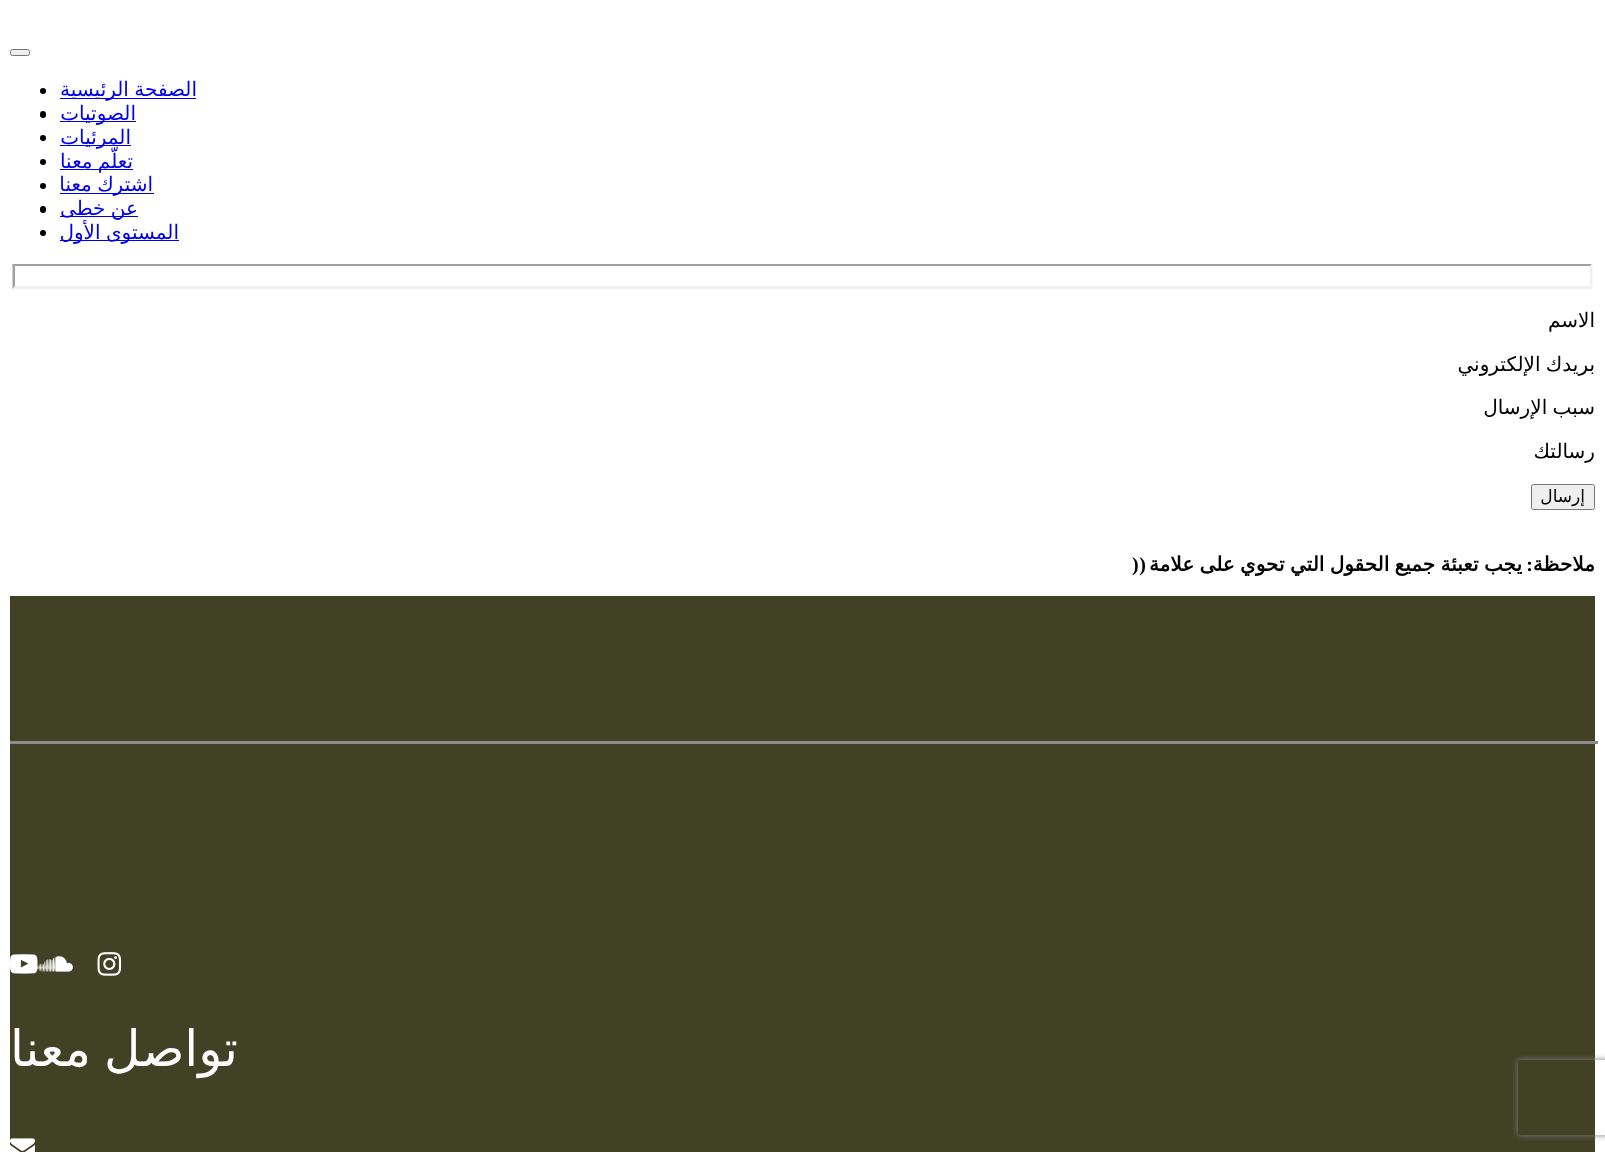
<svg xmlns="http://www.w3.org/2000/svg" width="1605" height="1152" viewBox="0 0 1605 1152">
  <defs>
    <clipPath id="clip1"><path d="M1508 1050H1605V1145H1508ZM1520.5 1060H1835.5C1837 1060 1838 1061 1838 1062.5V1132.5C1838 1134 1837 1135 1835.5 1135H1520.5C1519 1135 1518 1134 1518 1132.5V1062.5C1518 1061 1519 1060 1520.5 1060Z" clip-rule="evenodd"/></clipPath>
  </defs>
  <rect width="100%" height="100%" fill="#fff"/>
  <rect x="10.5" y="49.5" width="19" height="6" rx="2" fill="#efefef" stroke="#767676"/>
  <path d="M60 98h136v1H60z" fill="#00e"/>
  <circle cx="43" cy="91" r="3" fill="#000"/>
  <path d="M60 121h76v1H60z" fill="#00e"/>
  <rect x="40" y="111" width="6" height="7" rx="3" fill="#000"/>
  <path d="M60 145h71v1H60z" fill="#00e"/>
  <circle cx="43" cy="138" r="3" fill="#000"/>
  <path d="M60 169h73v1H60z" fill="#00e"/>
  <circle cx="43" cy="162" r="3" fill="#000"/>
  <path d="M60 193h94v1H60z" fill="#00e"/>
  <circle cx="43" cy="186" r="3" fill="#000"/>
  <path d="M60 216h78v1H60z" fill="#00e"/>
  <rect x="40" y="206" width="6" height="7" rx="3" fill="#000"/>
  <path d="M60 240h119v1H60z" fill="#00e"/>
  <circle cx="43" cy="233" r="3" fill="#000"/>
  <path d="M12 264H1592L1590 266H15Z" fill="#9f9f9f"/>
  <path d="M1592.5 264V289L1590 286V266Z" fill="#efefef"/>
  <path d="M1592 289H12L15 286H1590Z" fill="#efefef"/>
  <path d="M12.5 289V264L15 266V286Z" fill="#9f9f9f"/>
  <rect x="1531.5" y="484.5" width="63" height="25" rx="2" fill="#efefef" stroke="#767676"/>
  <path d="M10 596h1585v556H10z" fill="#414125"/>
  <g clip-path="url(#clip1)">
    <rect x="1518" y="1060" width="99" height="75" rx="2.5" fill="#808080" filter="blur(3px)"/>
  </g>
  <path d="M10 741h1588v3H10z" fill="#8c8b8b"/>
  <image x="97" y="952" width="25" height="24" href="img/1.png"/>
  <image x="10" y="954" width="28" height="20" href="img/3.png"/>
  <image x="37" y="956" width="36" height="16" href="img/2.png"/>
  <image x="10" y="1138" width="25" height="14" href="img/4.png"/>
  <g font-family="DejaVu Sans" font-size="20" direction="rtl" fill="#00e">
    <text x="197" y="96" word-spacing="-1">الصفحة الرئيسية</text>
    <text x="136" y="120">الصوتيات</text>
    <text x="131" y="144">المرئيات</text>
    <text x="133" y="168" word-spacing="-1">تعلّم معنا</text>
    <text x="153" y="191" word-spacing="-1">اشترك معنا</text>
    <text x="138" y="215" word-spacing="-1">عن خطى</text>
    <text x="179" y="239" word-spacing="-1">المستوى الأول</text>
  </g>
  <g font-family="DejaVu Sans" font-size="20" direction="rtl" fill="#000">
    <text x="1595" y="327">الاسم</text>
    <text x="1595" y="371" word-spacing="-1">بريدك الإلكتروني</text>
    <text x="1595" y="414" word-spacing="-1">سبب الإرسال</text>
    <text x="1595" y="458">رسالتك</text>
  </g>
  <text x="1585" y="502" font-family="DejaVu Sans" font-size="17" direction="rtl" fill="#000">إرسال</text>
  <g font-family="DejaVu Sans" font-size="20" font-weight="bold" direction="rtl" fill="#000">
    <text x="1595" y="571">ملاحظة</text>
    <text x="1522" y="571" word-spacing="-1">يجب تعبئة جميع الحقول التي تحوي على علامة</text>
  </g>
  <g font-family="Liberation Serif" font-size="20" font-weight="bold" direction="rtl" fill="#000">
    <text x="1533" y="571">:</text>
    <text x="1146" y="571">(</text>
  </g>
  <text x="1132" y="571" font-family="Liberation Serif" font-size="20" font-weight="bold" fill="#000">)</text>
  <text x="238" y="1066" word-spacing="-3" font-family="DejaVu Sans" font-size="50" direction="rtl" fill="#fff">تواصل معنا</text>
</svg>
